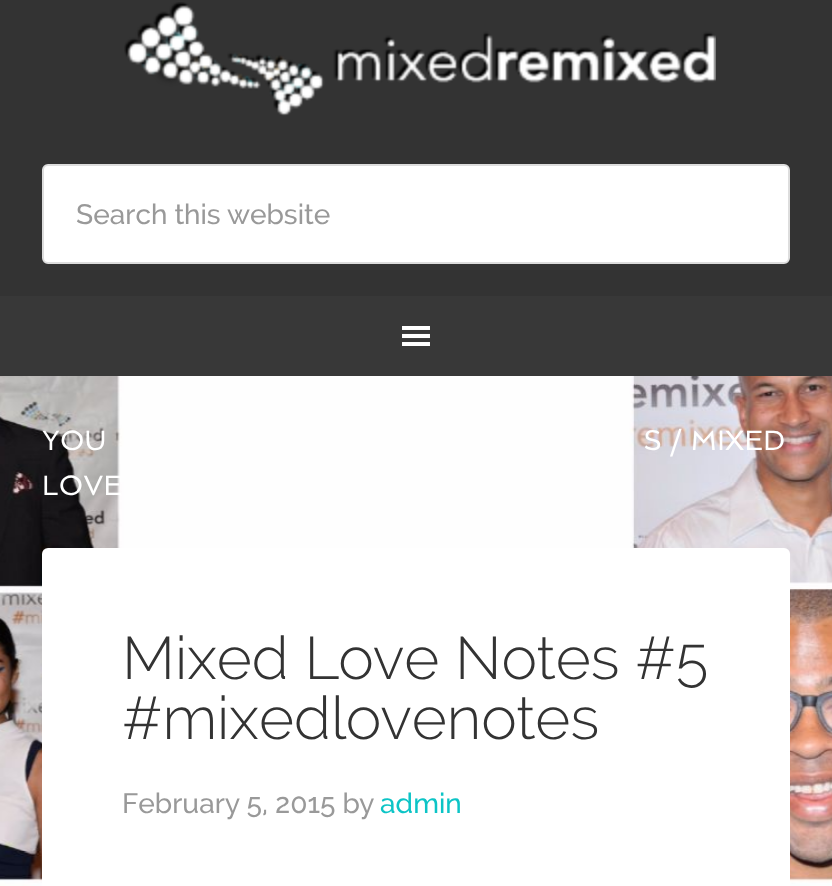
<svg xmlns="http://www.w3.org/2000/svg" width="832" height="886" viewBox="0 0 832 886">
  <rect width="100%" height="100%" fill="#fff"/>
  <path d="M0 0h832v296H0z" fill="#333"/>
  <image x="124" y="2" width="592" height="114" href="img/1.png"/>
  <rect x="43" y="165" width="746" height="98" rx="5" fill="#fff" stroke="#ddd" stroke-width="2"/>
  <image x="0" y="376" width="832" height="510" href="img/2.png"/>
  <path d="M0 296h832v80H0z" fill="#383838"/>
  <image x="402" y="326" width="28" height="20" href="img/3.png"/>
  <rect x="42" y="548" width="748" height="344" rx="6" fill="#fff"/>
  <text x="76" y="224" font-family="Raleway" font-size="28" font-weight="500" fill="#999">Search this website</text>
  <text x="42" y="450" font-family="Spinnaker" font-size="28" fill="#fff">YOU</text>
  <text x="644" y="450" font-family="Raleway" font-size="28" font-weight="500" fill="#fff">S</text>
  <g font-family="Spinnaker" font-size="28" fill="#fff">
    <text x="669" y="450">/ MIXED</text>
    <text x="42" y="495">LOVE</text>
  </g>
  <g font-family="Raleway" font-size="60" font-weight="300" fill="#333">
    <text x="122" y="679">Mixed Love Notes #5</text>
    <text x="122" y="739">#mixedlovenotes</text>
  </g>
  <text x="122" y="813" font-family="Raleway" font-size="28" font-weight="500" fill="#999">February 5, 2015 by</text>
  <text x="380" y="813" font-family="Raleway" font-size="28" font-weight="500" fill="#0cc4c6">admin</text>
</svg>
